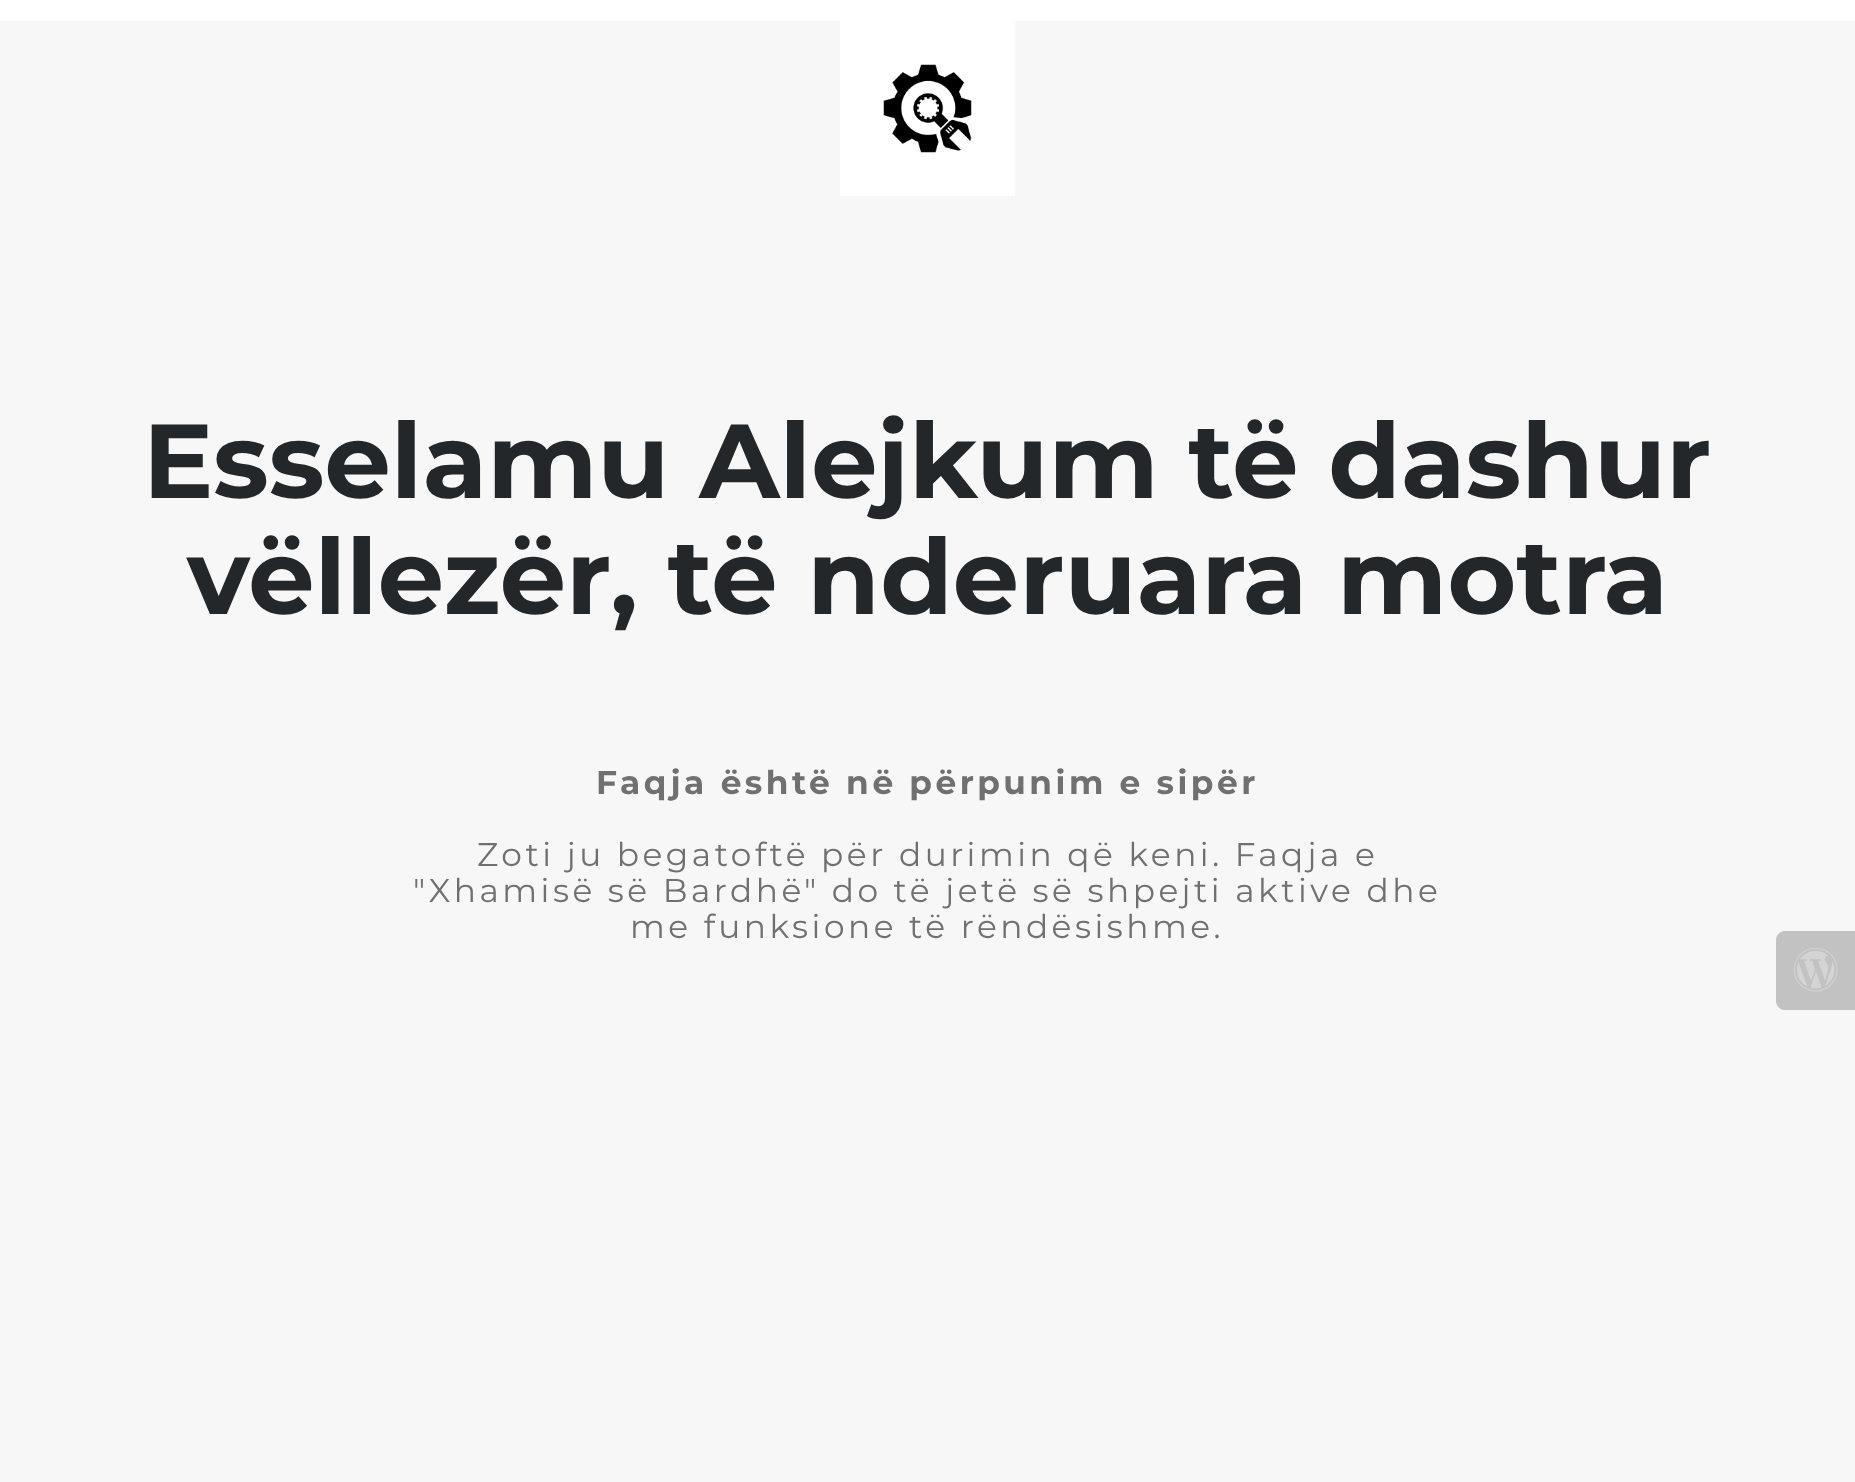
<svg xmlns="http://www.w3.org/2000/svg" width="1855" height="1482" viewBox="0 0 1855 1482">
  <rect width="100%" height="100%" fill="#f7f7f7"/>
  <path d="M0 0h1855v21H0z" fill="#fff"/>
  <path d="M840 21h175v175H840z" fill="#fff"/>
  <image x="883" y="64" width="89" height="89" href="img/1.png"/>
  <path d="M1785 931H1855V1010H1785C1780 1010 1776 1006 1776 1001V940C1776 935 1780 931 1785 931Z" fill="#c2c2c2"/>
  <image x="1793" y="947" width="45" height="45" href="img/2.png"/>
  <g font-family="Montserrat" font-size="105" font-weight="100" fill="#23272a">
    <text x="143" y="498">Esselamu Alejkum të dashur</text>
    <text x="187" y="614">vëllezër, të nderuara motra</text>
  </g>
  <text x="596" y="794" font-family="Montserrat" font-size="32.8" font-weight="100" letter-spacing="3.5" fill="#707070">Faqja është në përpunim e sipër</text>
  <g font-family="'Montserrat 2'" font-size="32.8" font-weight="100" letter-spacing="3.5" fill="#707070">
    <text x="477" y="866">Zoti ju begatoftë për durimin që keni. Faqja e</text>
    <text x="413" y="902">"Xhamisë së Bardhë" do të jetë së shpejti aktive dhe</text>
    <text x="630" y="938">me funksione të rëndësishme.</text>
  </g>
</svg>
